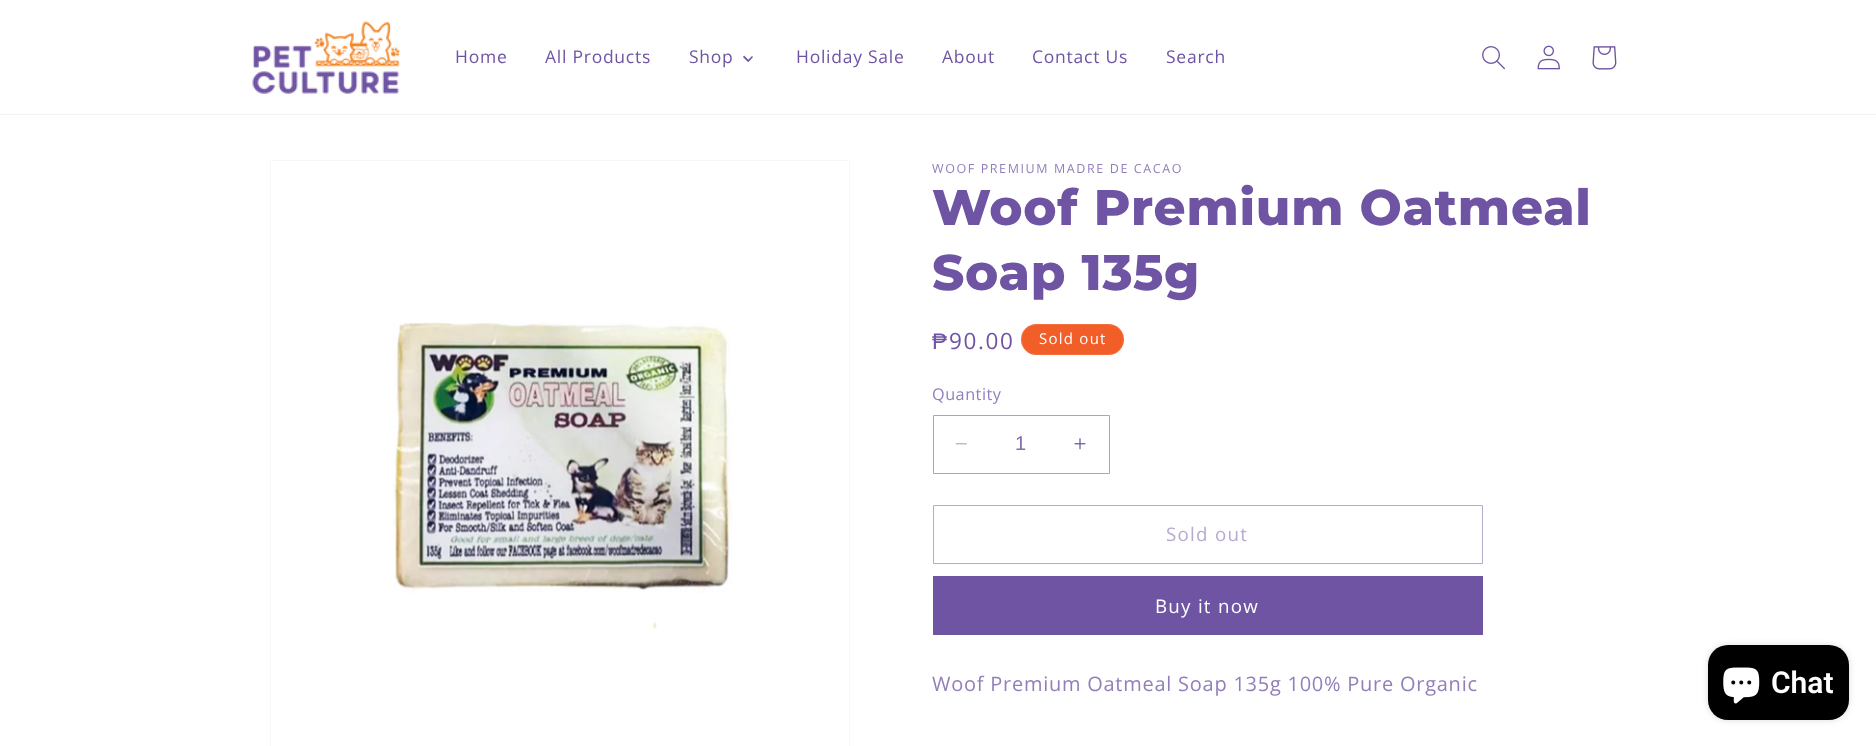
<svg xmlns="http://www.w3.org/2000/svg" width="1876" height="746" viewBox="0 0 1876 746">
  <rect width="100%" height="100%" fill="#fff"/>
  <path d="M0 114h1876v1H0z" fill="#f3f1f8"/>
  <image x="252" y="21" width="149" height="73" href="img/1.png"/>
  <path d="M752 56L753 57L748.5 62L747.5 60.5Z" fill="#6e54a3"/>
  <path d="M744 55.5L749 60.5L748 62L743 57Z" fill="#6e54a3"/>
  <image x="1482" y="46" width="23" height="24" href="img/2.png"/>
  <image x="1537" y="45" width="23" height="25" href="img/3.png"/>
  <image x="1592" y="46" width="25" height="24" href="img/4.png"/>
  <path d="M270.5 160.5h579v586H270.5z" fill="none" stroke="#f8f6fa"/>
  <image x="393" y="322" width="340" height="307" href="img/5.png"/>
  <rect x="1021" y="324" width="103" height="31" rx="15.5" fill="#f15e28"/>
  <rect x="1021.5" y="324.5" width="102" height="30" rx="15" fill="none" stroke="#ffffff1a"/>
  <image x="955" y="443" width="12" height="2" href="img/6.png"/>
  <image x="1074" y="438" width="12" height="12" href="img/7.png"/>
  <path d="M933.5 415.5h176v58H933.5z" fill="none" stroke="#afa1cc"/>
  <path d="M933.5 505.5h549v58H933.5z" fill="none" stroke="#b7aad1"/>
  <path d="M933 576h550v59H933z" fill="#6e54a3"/>
  <rect x="1708" y="645" width="141" height="75" rx="20" fill="#00000026" filter="blur(3px)"/>
  <rect x="1708" y="645" width="141" height="75" rx="20" fill="#000"/>
  <image x="1723" y="667" width="37" height="37" href="img/8.png"/>
  <g font-family="Open Sans" font-size="17.5" letter-spacing="0.75" fill="#6e54a3">
    <text x="455" y="63">Home</text>
    <text x="545" y="63">All Products</text>
    <text x="689" y="63">Shop</text>
    <text x="796" y="63">Holiday Sale</text>
    <text x="942" y="63">About</text>
    <text x="1032" y="63">Contact Us</text>
    <text x="1166" y="63">Search</text>
  </g>
  <text x="932" y="173" font-family="Open Sans" font-size="12.5" letter-spacing="1.6" fill="#927fba">WOOF PREMIUM MADRE DE CACAO</text>
  <g font-family="Montserrat" font-size="50" font-weight="800" letter-spacing="0.75" fill="#6e54a3">
    <text x="932" y="225">Woof Premium Oatmeal</text>
    <text x="932" y="290">Soap 135g</text>
  </g>
  <text x="932" y="349" font-family="Liberation Sans" font-size="22.5" letter-spacing="1.6" fill="#6e54a3">₱</text>
  <text x="949" y="349" font-family="Open Sans" font-size="22.5" letter-spacing="1.6" fill="#6e54a3">90.00</text>
  <text x="1039" y="344" font-family="Open Sans" font-size="15" letter-spacing="1.25" fill="#fff">Sold out</text>
  <text x="932" y="400" font-family="Open Sans" font-size="16.25" letter-spacing="0.5" fill="#927fba">Quantity</text>
  <text x="1015" y="450" font-family="Liberation Sans" font-size="20" fill="#846eb1">1</text>
  <text x="1166" y="541" font-family="Open Sans" font-size="18.75" letter-spacing="1.25" fill="#b7aad1">Sold out</text>
  <text x="1155" y="613" font-family="Open Sans" font-size="18.75" letter-spacing="1.25" fill="#fff">Buy it now</text>
  <text x="932" y="691" font-family="Open Sans" font-size="20" letter-spacing="0.75" fill="#927fba">Woof Premium Oatmeal Soap 135g 100% Pure Organic</text>
  <text x="1771" y="693" font-family="Roboto" font-size="30" font-weight="600" fill="#fff">Chat</text>
</svg>
